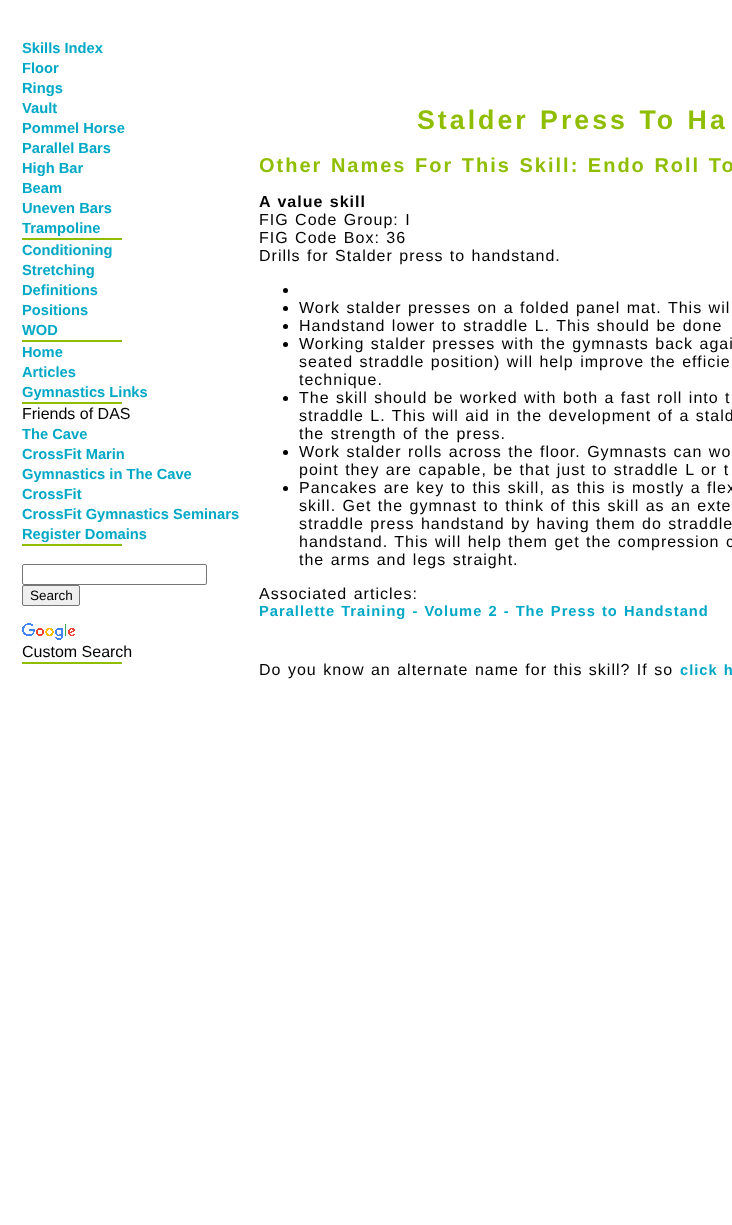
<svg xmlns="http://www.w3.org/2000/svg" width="732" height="1225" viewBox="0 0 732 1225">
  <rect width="100%" height="100%" fill="#fff"/>
  <path d="M22 238h100v2H22z" fill="#8fbe00"/>
  <path d="M22 340h100v2H22z" fill="#8fbe00"/>
  <path d="M22 402h100v2H22z" fill="#8fbe00"/>
  <path d="M22 544h100v2H22z" fill="#8fbe00"/>
  <rect x="22.5" y="564.5" width="184" height="20" rx="1.5" fill="none" stroke="#767676"/>
  <rect x="22.5" y="585.5" width="57" height="20" rx="1.5" fill="#efefef" stroke="#767676"/>
  <image x="22" y="623" width="53" height="17" href="img/1.png"/>
  <path d="M22 662h100v2H22z" fill="#8fbe00"/>
  <circle cx="285.5" cy="290.5" r="2.5" fill="#000"/>
  <circle cx="285.5" cy="308.5" r="2.5" fill="#000"/>
  <circle cx="285.5" cy="326.5" r="2.5" fill="#000"/>
  <circle cx="285.5" cy="344.5" r="2.5" fill="#000"/>
  <circle cx="285.5" cy="398.5" r="2.5" fill="#000"/>
  <circle cx="285.5" cy="452.5" r="2.5" fill="#000"/>
  <circle cx="285.5" cy="488.5" r="2.5" fill="#000"/>
  <g font-family="Liberation Sans" font-size="14.7" font-weight="bold" fill="#00a8c6">
    <text x="22" y="53">Skills Index</text>
    <text x="22" y="73">Floor</text>
    <text x="22" y="93">Rings</text>
    <text x="22" y="113">Vault</text>
    <text x="22" y="133">Pommel Horse</text>
    <text x="22" y="153">Parallel Bars</text>
    <text x="22" y="173">High Bar</text>
    <text x="22" y="193">Beam</text>
    <text x="22" y="213">Uneven Bars</text>
    <text x="22" y="233">Trampoline</text>
    <text x="22" y="255">Conditioning</text>
    <text x="22" y="275">Stretching</text>
    <text x="22" y="295">Definitions</text>
    <text x="22" y="315">Positions</text>
    <text x="22" y="335">WOD</text>
    <text x="22" y="357">Home</text>
    <text x="22" y="377">Articles</text>
    <text x="22" y="397">Gymnastics Links</text>
  </g>
  <text x="22" y="419" font-family="Liberation Sans" font-size="16" fill="#000">Friends of DAS</text>
  <g font-family="Liberation Sans" font-size="14.7" font-weight="bold" fill="#00a8c6">
    <text x="22" y="439">The Cave</text>
    <text x="22" y="459">CrossFit Marin</text>
    <text x="22" y="479">Gymnastics in The Cave</text>
    <text x="22" y="499">CrossFit</text>
    <text x="22" y="519">CrossFit Gymnastics Seminars</text>
    <text x="22" y="539">Register Domains</text>
  </g>
  <text x="30" y="600" font-family="Liberation Sans" font-size="13.5" fill="#000">Search</text>
  <text x="22" y="657" font-family="Liberation Sans" font-size="16" fill="#000">Custom Search</text>
  <text x="417" y="129" word-spacing="1" font-family="Liberation Sans" font-size="26.75" font-weight="bold" letter-spacing="3" fill="#8fbe00">Stalder Press To Ha</text>
  <text x="259" y="172" word-spacing="1" font-family="Liberation Sans" font-size="20" font-weight="bold" letter-spacing="2" fill="#8fbe00">Other Names For This Skill: Endo Roll To</text>
  <text x="259" y="207" word-spacing="1" font-family="Liberation Sans" font-size="16" font-weight="bold" letter-spacing="1" fill="#000">A value skill</text>
  <g font-family="Liberation Sans" font-size="16" letter-spacing="1" fill="#000">
    <text x="259" y="225" word-spacing="1">FIG Code Group: I</text>
    <text x="259" y="243" word-spacing="1">FIG Code Box: 36</text>
    <text x="259" y="261" word-spacing="1">Drills for Stalder press to handstand.</text>
    <text x="299" y="313" word-spacing="1">Work stalder presses on a folded panel mat. This wil</text>
    <text x="299" y="331" word-spacing="1">Handstand lower to straddle L. This should be done</text>
    <text x="299" y="349" word-spacing="1">Working stalder presses with the gymnasts back agai</text>
    <text x="299" y="367" word-spacing="1">seated straddle position) will help improve the efficie</text>
    <text x="299" y="385">technique.</text>
    <text x="299" y="403" word-spacing="1">The skill should be worked with both a fast roll into t</text>
    <text x="299" y="421" word-spacing="1">straddle L. This will aid in the development of a stald</text>
    <text x="299" y="439" word-spacing="1">the strength of the press.</text>
    <text x="299" y="457" word-spacing="1">Work stalder rolls across the floor. Gymnasts can wo</text>
    <text x="299" y="475" word-spacing="1">point they are capable, be that just to straddle L or t</text>
    <text x="299" y="493" word-spacing="1">Pancakes are key to this skill, as this is mostly a flex</text>
    <text x="299" y="511" word-spacing="1">skill. Get the gymnast to think of this skill as an exte</text>
    <text x="299" y="529" word-spacing="1">straddle press handstand by having them do straddle</text>
    <text x="299" y="547" word-spacing="1">handstand. This will help them get the compression c</text>
    <text x="299" y="565" word-spacing="1">the arms and legs straight.</text>
    <text x="259" y="599" word-spacing="1">Associated articles:</text>
  </g>
  <text x="259" y="616" word-spacing="1" font-family="Liberation Sans" font-size="14.7" font-weight="bold" letter-spacing="1" fill="#00a8c6">Parallette Training - Volume 2 - The Press to Handstand</text>
  <text x="259" y="675" word-spacing="1" font-family="Liberation Sans" font-size="16" letter-spacing="1" fill="#000">Do you know an alternate name for this skill? If so</text>
  <text x="680" y="675" word-spacing="1" font-family="Liberation Sans" font-size="14.7" font-weight="bold" letter-spacing="1" fill="#00a8c6">click h</text>
</svg>
